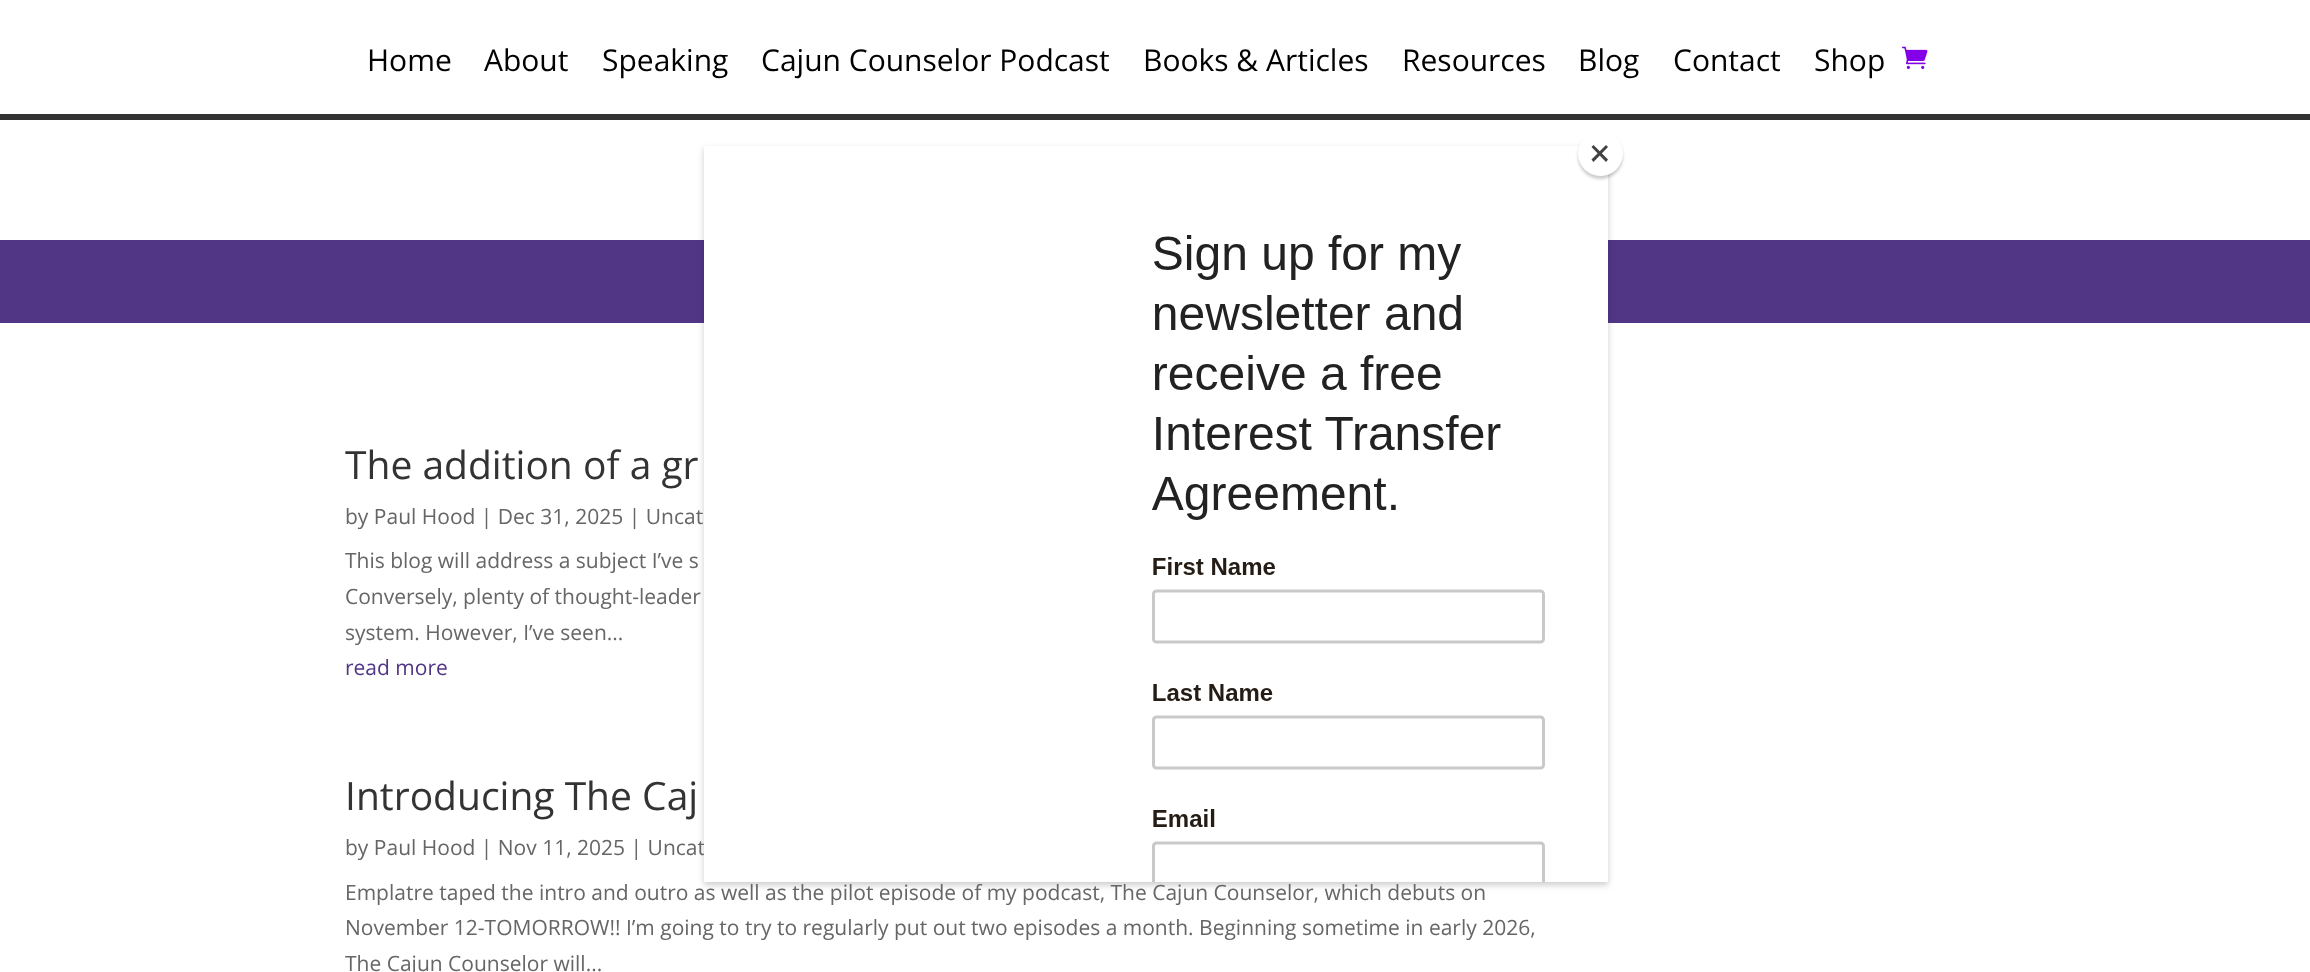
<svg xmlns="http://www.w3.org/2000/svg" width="2310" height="972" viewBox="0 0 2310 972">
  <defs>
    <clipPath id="clip1"><path d="M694 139H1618V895H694ZM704 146H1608V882H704Z" clip-rule="evenodd"/></clipPath>
  </defs>
  <rect width="100%" height="100%" fill="#fff"/>
  <path d="M0 114h2310v6H0z" fill="#333"/>
  <image x="1902" y="46" width="26" height="23" href="img/1.png"/>
  <path d="M0 240h2310v83H0z" fill="#513686"/>
  <rect x="1578" y="134" width="45" height="45" rx="22.5" fill="#00000033" filter="blur(1.5px)"/>
  <g clip-path="url(#clip1)">
    <path d="M704 149h904v736H704z" fill="#00000033" filter="blur(3px)"/>
  </g>
  <circle cx="1600.5" cy="153.5" r="22.5" fill="#fff"/>
  <path d="M1606 145L1608 147L1593.5 162L1591.5 159.5Z" fill="#414141"/>
  <path d="M1591.5 147L1593.5 145L1608 159.5L1606 162Z" fill="#414141"/>
  <g font-family="Open Sans" font-size="30" fill="#000">
    <text x="367" y="71">Home</text>
    <text x="484" y="71">About</text>
    <text x="602" y="71">Speaking</text>
    <text x="761" y="71">Cajun Counselor Podcast</text>
    <text x="1143" y="71">Books &amp; Articles</text>
    <text x="1402" y="71">Resources</text>
    <text x="1578" y="71">Blog</text>
    <text x="1673" y="71">Contact</text>
    <text x="1814" y="71">Shop</text>
  </g>
  <text x="345" y="479" font-family="Open Sans" font-size="39" fill="#333">The addition of a gr</text>
  <g font-family="Open Sans" font-size="21" fill="#666">
    <text x="345" y="524">by Paul Hood | Dec 31, 2025 | Uncat</text>
    <text x="345" y="568">This blog will address a subject I’ve s</text>
    <text x="345" y="604">Conversely, plenty of thought-leader</text>
    <text x="345" y="640">system. However, I’ve seen...</text>
  </g>
  <text x="345" y="675" font-family="Open Sans" font-size="21" fill="#513686">read more</text>
  <text x="345" y="810" font-family="Open Sans" font-size="39" fill="#333">Introducing The Caj</text>
  <g font-family="Open Sans" font-size="21" fill="#666">
    <text x="345" y="855">by Paul Hood | Nov 11, 2025 | Uncat</text>
    <text x="345" y="900">Emplatre taped the intro and outro as well as the pilot episode of my podcast, The Cajun Counselor, which debuts on</text>
    <text x="345" y="935">November 12-TOMORROW!! I’m going to try to regularly put out two episodes a month. Beginning sometime in early 2026,</text>
    <text x="345" y="971">The Cajun Counselor will...</text>
  </g>
  <image x="704" y="235" width="904" height="647" href="img/2.png"/>
</svg>
